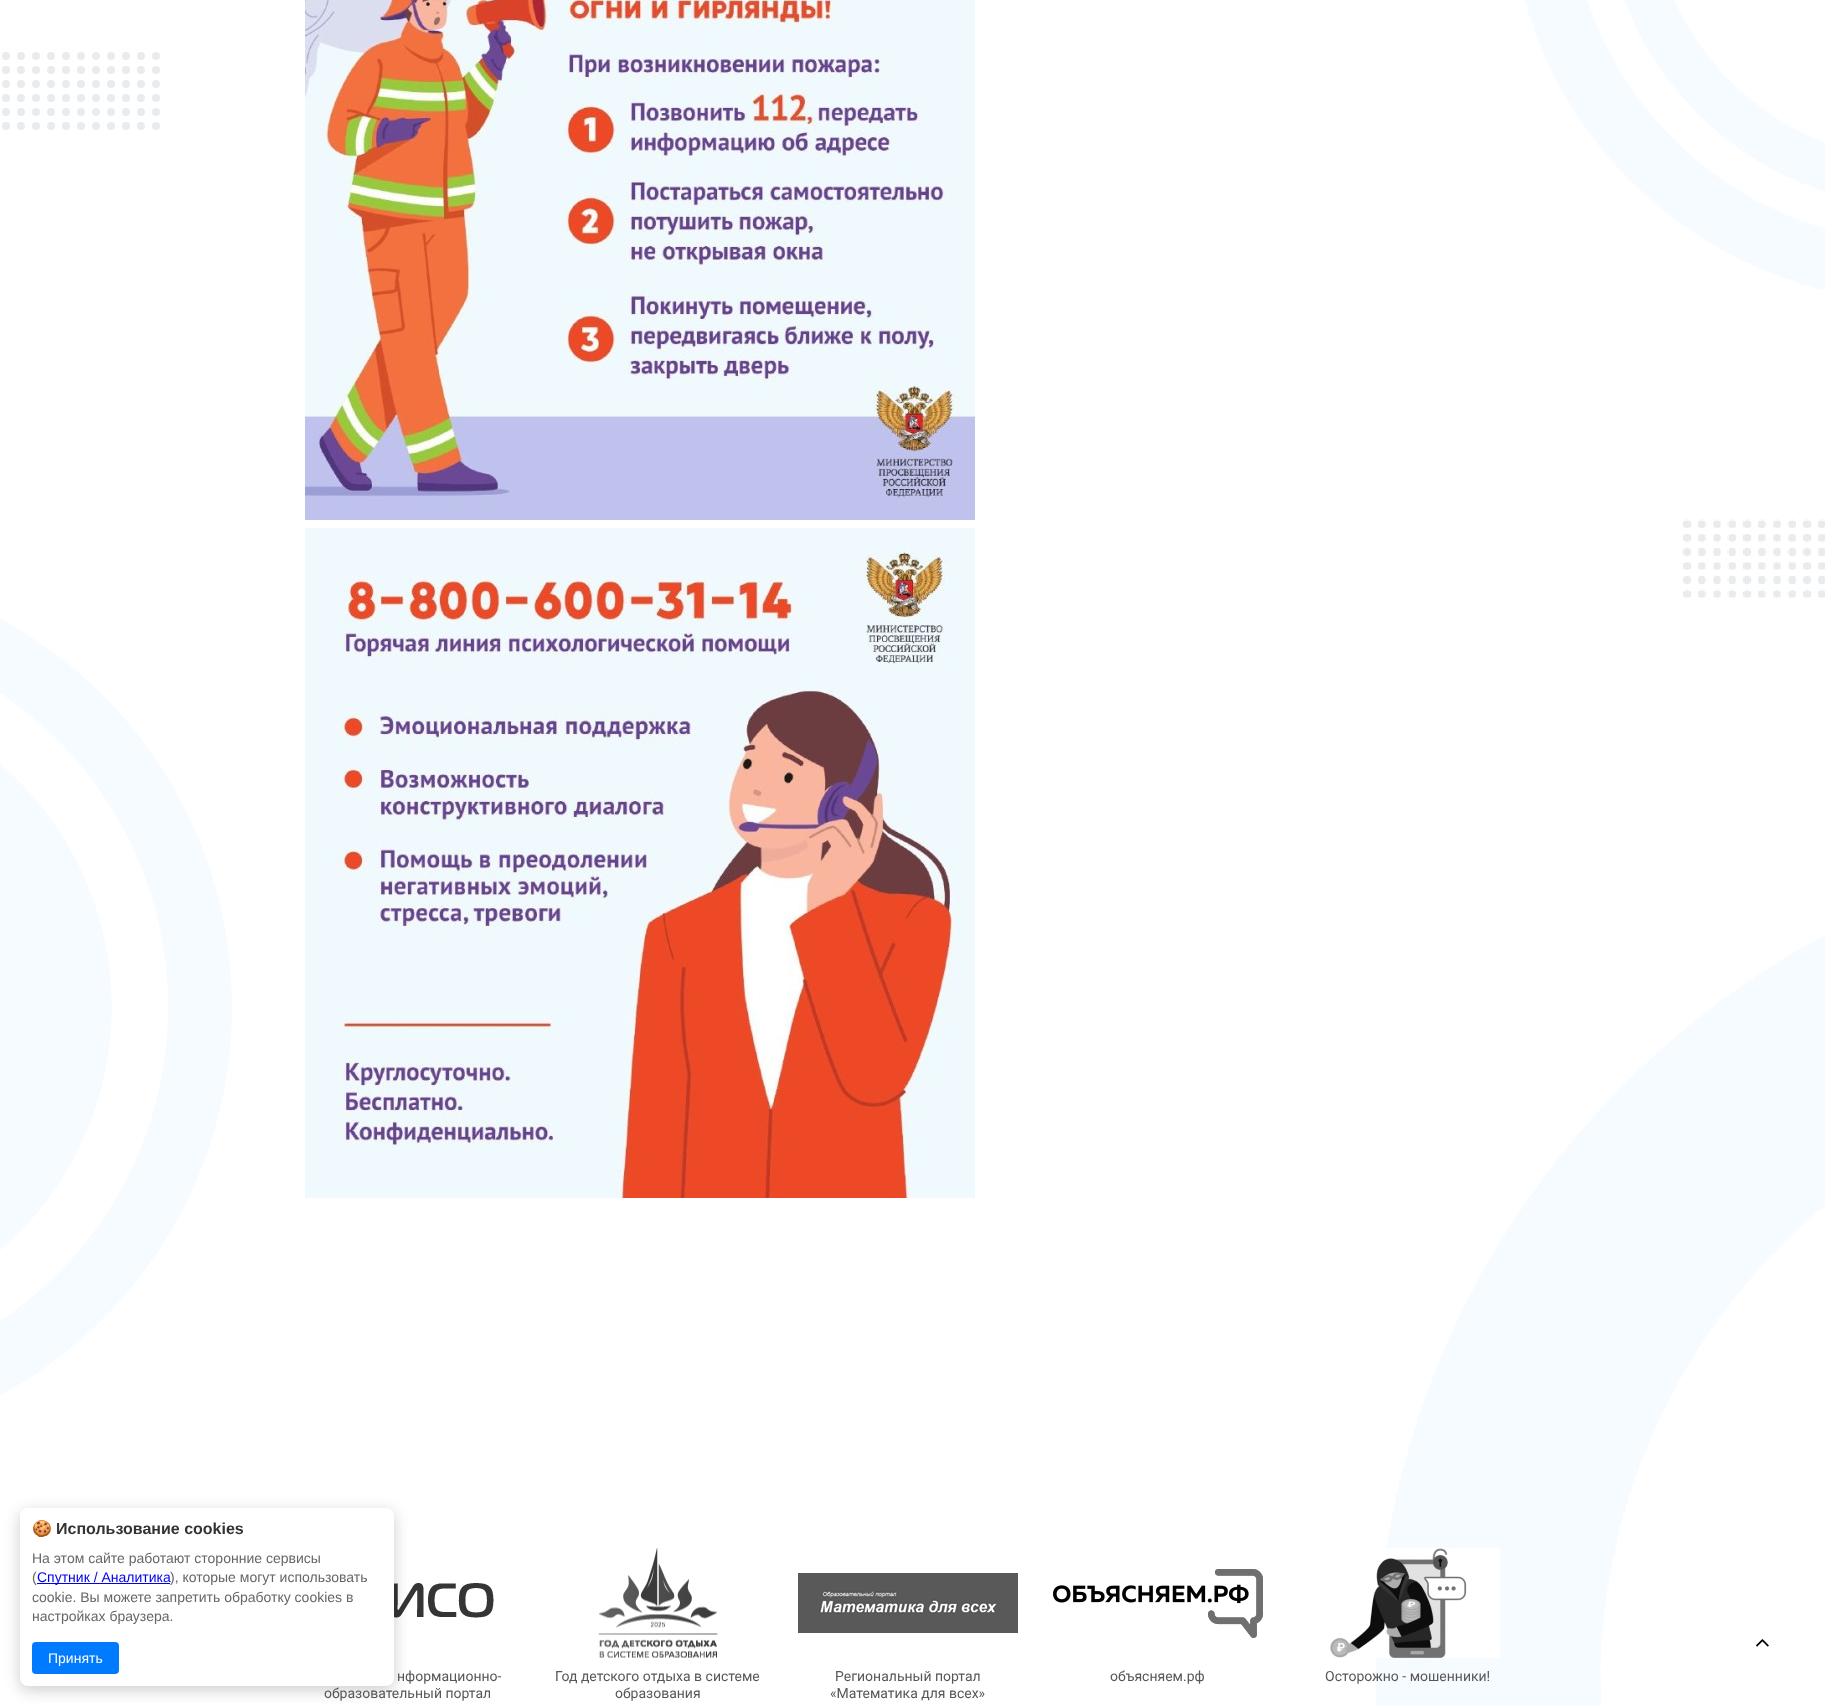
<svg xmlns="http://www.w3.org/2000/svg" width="1825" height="1706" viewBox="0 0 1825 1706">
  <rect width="100%" height="100%" fill="#fff"/>
  <image x="0" y="0" width="1825" height="1706" href="img/1.png"/>
  <image x="394" y="1583" width="100" height="35" href="img/5.png"/>
  <rect x="20" y="1512" width="374" height="178" rx="8" fill="#00000033" filter="blur(7.5px)"/>
  <rect x="20" y="1508" width="374" height="178" rx="8" fill="#fff"/>
  <path d="M37 1583h133v1H37z" fill="#00e"/>
  <rect x="32" y="1642" width="87" height="32" rx="4" fill="#007bff"/>
  <image x="305" y="0" width="670" height="520" href="img/2.png"/>
  <image x="305" y="528" width="670" height="670" href="img/3.png"/>
  <image x="1756" y="1639" width="13" height="8" href="img/4.png"/>
  <image x="598" y="1548" width="120" height="110" href="img/6.png"/>
  <image x="798" y="1573" width="220" height="60" href="img/7.png"/>
  <image x="1053" y="1569" width="210" height="69" href="img/8.png"/>
  <image x="1330" y="1548" width="170" height="110" href="img/9.png"/>
  <text x="32" y="1534" font-family="Noto Color Emoji" font-size="16" font-weight="bold" fill="#333">🍪</text>
  <text x="56" y="1534" font-family="Liberation Sans" font-size="16" font-weight="bold" fill="#333">Использование cookies</text>
  <g font-family="Liberation Sans" font-size="14" fill="#666">
    <text x="32" y="1563">На этом сайте работают сторонние сервисы</text>
    <text x="32" y="1582">(</text>
  </g>
  <text x="37" y="1582" font-family="Liberation Sans" font-size="14" fill="#00e">Спутник / Аналитика</text>
  <g font-family="Liberation Sans" font-size="14" fill="#666">
    <text x="170" y="1582">), которые могут использовать</text>
    <text x="32" y="1602">cookie. Вы можете запретить обработку cookies в</text>
    <text x="32" y="1621">настройках браузера.</text>
  </g>
  <text x="48" y="1663" font-family="Liberation Sans" font-size="14" fill="#fff">Принять</text>
  <g font-family="Roboto" font-size="14" fill="#575757">
    <text x="397" y="1681">нформационно-</text>
    <text x="324" y="1698">образовательный портал</text>
    <text x="555" y="1681">Год детского отдыха в системе</text>
    <text x="615" y="1698">образования</text>
    <text x="835" y="1681">Региональный портал</text>
    <text x="830" y="1698">«Математика для всех»</text>
    <text x="1110" y="1681">объясняем.рф</text>
    <text x="1325" y="1681">Осторожно - мошенники!</text>
  </g>
</svg>
